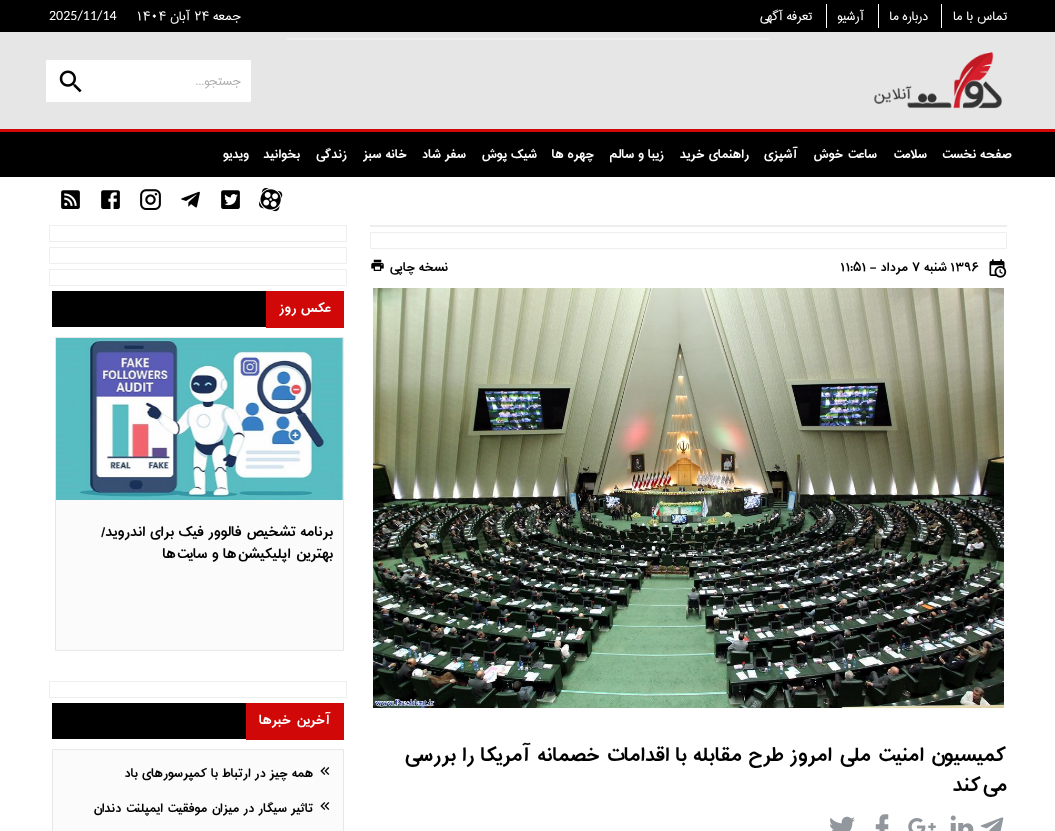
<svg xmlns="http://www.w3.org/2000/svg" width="1055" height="831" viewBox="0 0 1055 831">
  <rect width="100%" height="100%" fill="#fff"/>
  <path d="M0 32h1055v97H0z" fill="#e6e6e6"/>
  <path d="M0 0h1055v32H0z" fill="#000"/>
  <path d="M941 4h1v24H941z" fill="#fff"/>
  <path d="M878 4h1v24H878z" fill="#fff"/>
  <path d="M826 4h1v24H826z" fill="#fff"/>
  <image x="874" y="52" width="129" height="57" href="img/1.png"/>
  <path d="M287 38h482v2H287z" fill="#eee"/>
  <rect x="46" y="60" width="205" height="42" rx="1" fill="#fff"/>
  <image x="59" y="70" width="23" height="23" href="img/2.png"/>
  <path d="M0 132h1055v45H0z" fill="#000"/>
  <path d="M0 129h1055v3H0z" fill="#d10808"/>
  <image x="259" y="188" width="24" height="24" href="img/3.png"/>
  <image x="221" y="190" width="19" height="19" href="img/4.png"/>
  <image x="181" y="191" width="19" height="17" href="img/5.png"/>
  <image x="140" y="189" width="21" height="21" href="img/6.png"/>
  <image x="101" y="190" width="19" height="19" href="img/7.png"/>
  <image x="61" y="190" width="19" height="19" href="img/8.png"/>
  <path d="M370 225h637v2H370z" fill="#eee"/>
  <path d="M370.5 232.5h636v16H370.5z" fill="none" stroke="#eee"/>
  <image x="989" y="259" width="18" height="19" href="img/9.png"/>
  <image x="371" y="259" width="13" height="12" href="img/10.png"/>
  <image x="373" y="288" width="631" height="420" href="img/11.png"/>
  <image x="980" y="817" width="24" height="14" href="img/12.png"/>
  <image x="950" y="815" width="24" height="16" href="img/13.png"/>
  <image x="908" y="818" width="28" height="13" href="img/14.png"/>
  <image x="875" y="814" width="14" height="17" href="img/15.png"/>
  <image x="830" y="816" width="25" height="15" href="img/16.png"/>
  <path d="M49.5 225.5h297v16H49.5z" fill="none" stroke="#eee"/>
  <path d="M49.5 247.5h297v16H49.5z" fill="none" stroke="#eee"/>
  <path d="M49.5 269.5h297v16H49.5z" fill="none" stroke="#eee"/>
  <path d="M52 291h214v36H52z" fill="#000"/>
  <path d="M266 291h78v37H266z" fill="#d10808"/>
  <path d="M56 500h287v150H56z" fill="#fbfbfb"/>
  <path d="M55.5 337.5h288v313H55.5z" fill="none" stroke="#e7e7e7"/>
  <image x="56" y="338" width="287" height="162" href="img/17.png"/>
  <path d="M49.5 681.5h297v16H49.5z" fill="none" stroke="#eee"/>
  <path d="M52 703h194v36H52z" fill="#000"/>
  <path d="M246 703h98v37H246z" fill="#d10808"/>
  <path d="M52.5 749.5h291v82H52.5z" fill="#fbfbfb" stroke="#e7e7e7"/>
  <image x="320" y="767" width="10" height="8" href="img/18.png"/>
  <image x="320" y="802" width="10" height="8" href="img/18.png"/>
  <g font-family="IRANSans" font-size="16" direction="rtl" fill="#fff">
    <text x="1007" y="20">تماس با ما</text>
    <text x="928" y="20">درباره ما</text>
    <text x="864" y="20">آرشیو</text>
    <text x="812" y="20">تعرفه آگهی</text>
    <text x="241" y="20">جمعه</text>
  </g>
  <text x="194" y="20" font-family="IRANSans" font-size="16" fill="#fff">۲۴</text>
  <text x="190" y="20" font-family="IRANSans" font-size="16" direction="rtl" fill="#fff">آبان</text>
  <text x="136" y="20" font-family="IRANSans" font-size="16" fill="#fff">۱۴۰۴</text>
  <text x="49" y="20" font-family="Carlito" font-size="14" fill="#fff">2025/11/14</text>
  <text x="241" y="85" font-family="IRANSans" font-size="16" direction="rtl" fill="#b0b0b0">جستجو...</text>
  <g font-family="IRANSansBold" font-size="15" font-weight="bold" direction="rtl" fill="#fff">
    <text x="1012" y="158">صفحه نخست</text>
    <text x="927" y="158">سلامت</text>
    <text x="877" y="158">ساعت خوش</text>
    <text x="798" y="158">آشپزی</text>
    <text x="749" y="158">راهنمای خرید</text>
    <text x="664" y="158">زیبا و سالم</text>
    <text x="594" y="158">چهره ها</text>
    <text x="537" y="158">شیک پوش</text>
    <text x="466" y="158">سفر شاد</text>
    <text x="407" y="158">خانه سبز</text>
    <text x="347" y="158">زندگی</text>
    <text x="300" y="158">بخوانید</text>
    <text x="249" y="158">ویدیو</text>
  </g>
  <text x="950" y="271" font-family="IRANSansBold" font-size="15" font-weight="bold" fill="#000">۱۳۹۶</text>
  <text x="947" y="271" font-family="IRANSansBold" font-size="15" font-weight="bold" direction="rtl" fill="#000">شنبه</text>
  <text x="912" y="271" font-family="IRANSansBold" font-size="15" font-weight="bold" fill="#000">۷</text>
  <text x="908" y="271" font-family="IRANSansBold" font-size="15" font-weight="bold" direction="rtl" fill="#000">مرداد -</text>
  <text x="840" y="271" font-family="IRANSansBold" font-size="15" font-weight="bold" fill="#000">11:51</text>
  <text x="448" y="271" font-family="IRANSansBold" font-size="15" font-weight="bold" direction="rtl" fill="#000">نسخه چاپی</text>
  <g font-family="IRANSansBold" font-size="24" font-weight="bold" direction="rtl" fill="#000">
    <text x="1006" y="761">کمیسیون امنیت ملی امروز طرح مقابله با اقدامات خصمانه آمریکا را بررسی</text>
    <text x="1007" y="791">می‌کند</text>
  </g>
  <text x="331" y="312" font-family="IRANSansBold" font-size="16" font-weight="bold" direction="rtl" fill="#fff">عکس روز</text>
  <g font-family="IRANSansBold" font-size="17" font-weight="bold" direction="rtl" fill="#000">
    <text x="333" y="536">برنامه تشخیص فالوور فیک برای اندروید/</text>
    <text x="333" y="558">بهترین اپلیکیشن‌ها و سایت‌ها</text>
  </g>
  <text x="331" y="724" font-family="IRANSansBold" font-size="16" font-weight="bold" direction="rtl" fill="#fff">آخرین خبرها</text>
  <g font-family="IRANSansBold" font-size="15" font-weight="bold" direction="rtl" fill="#000">
    <text x="313" y="777">همه چیز در ارتباط با کمپرسورهای باد</text>
    <text x="313" y="812">تاثیر سیگار در میزان موفقیت ایمپلنت دندان</text>
  </g>
</svg>
